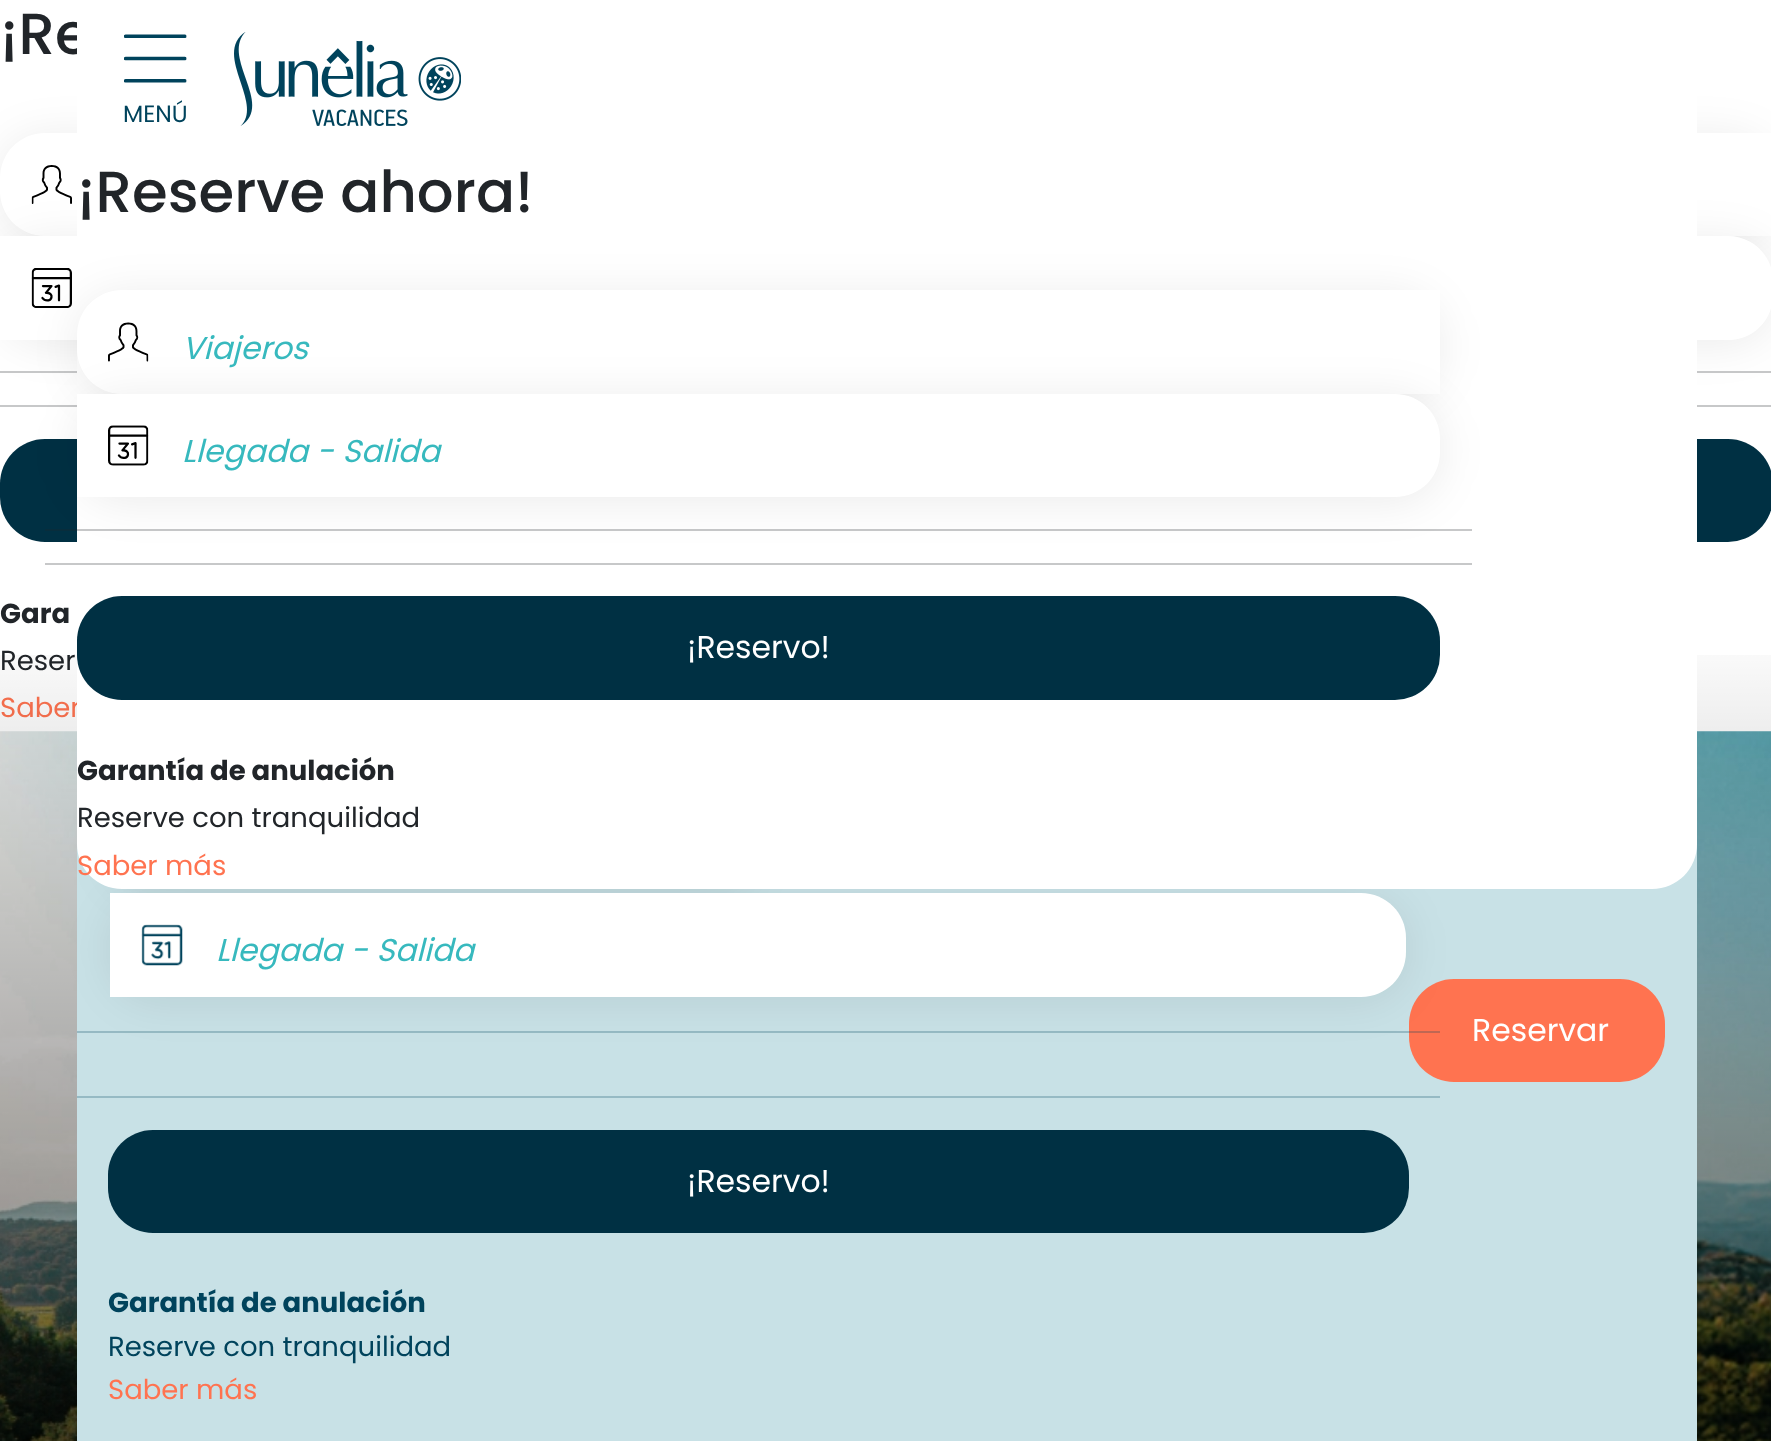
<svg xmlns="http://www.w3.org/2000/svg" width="1771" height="1441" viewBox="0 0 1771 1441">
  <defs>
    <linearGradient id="g1" gradientUnits="userSpaceOnUse" x1="886" y1="731" x2="887" y2="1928"><stop offset="0.4" stop-color="#000" stop-opacity="0"/><stop offset="1" stop-color="#000" stop-opacity="0.7"/></linearGradient>
    <linearGradient id="g2" gradientUnits="userSpaceOnUse" x1="887" y1="619" x2="887" y2="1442"><stop offset="0" stop-color="#000" stop-opacity="0"/><stop offset="1" stop-color="#000" stop-opacity="0.5"/></linearGradient>
  </defs>
  <rect width="100%" height="100%" fill="#fff"/>
  <rect y="137" width="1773" height="104" rx="45" fill="#00000014" filter="blur(22.5px)"/>
  <path d="M45 133H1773V236H45C20 236 0 216 0 191V178C0 153 20 133 45 133Z" fill="#fff"/>
  <image x="31" y="165" width="41" height="39" href="img/1.png"/>
  <rect y="241" width="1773" height="103" rx="45" fill="#00000014" filter="blur(22.5px)"/>
  <path d="M0 236H1728C1753 236 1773 256 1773 281V295C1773 320 1753 340 1728 340H0Z" fill="#fff"/>
  <image x="31" y="268" width="41" height="40" href="img/2.png"/>
  <path d="M0 371h1771v2H0z" fill="#c6c7c8"/>
  <path d="M0 405h1771v2H0z" fill="#c7c8c9"/>
  <rect y="439" width="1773" height="103" rx="45" fill="#003043"/>
  <image x="0" y="731" width="1771" height="710" href="img/7.png"/>
  <path d="M0 1231h1771v210H0z" fill="url(#g1)"/>
  <text x="0" y="54" font-family="Poppins" font-size="57.75" font-weight="500" fill="#212529">¡Re</text>
  <text x="0" y="623" font-family="Poppins" font-size="27.5" font-weight="bold" fill="#212529">Gara</text>
  <text x="0" y="670" font-family="Poppins" font-size="27.5" fill="#212529">Reser</text>
  <text x="0" y="717" font-family="Poppins" font-size="27.5" fill="#ff7350">Saber</text>
  <path d="M0 655h1771v786H0z" fill="url(#g2)"/>
  <path d="M77 844h1620v597H77z" fill="#c8e1e6"/>
  <rect x="110" y="790" width="646" height="103" rx="45" fill="#00000014" filter="blur(22.5px)"/>
  <path d="M77 1096h1363v2H77z" fill="#96bac4"/>
  <rect x="108" y="1130" width="1301" height="103" rx="45" fill="#003043"/>
  <text x="687" y="1192" font-family="Poppins" font-size="31.5" fill="#fff">¡Reservo!</text>
  <text x="108" y="1312" font-family="Poppins" font-size="27.5" font-weight="bold" fill="#00435c">Garantía de anulación</text>
  <text x="108" y="1356" font-family="Poppins" font-size="27.5" fill="#00435c">Reserve con tranquilidad</text>
  <text x="108" y="1399" font-family="Poppins" font-size="27.5" fill="#ff7350">Saber más</text>
  <rect x="1409" y="979" width="256" height="103" rx="45" fill="#ff7350"/>
  <rect x="110" y="898" width="1296" height="103" rx="45" fill="#00000014" filter="blur(22.5px)"/>
  <path d="M77 0H1697V844C1697 869 1677 889 1652 889H122C97 889 77 869 77 844Z" fill="#fff"/>
  <rect x="77" y="295" width="1363" height="103" rx="45" fill="#00000014" filter="blur(22.5px)"/>
  <path d="M122 290H1440V394H122C97 394 77 374 77 349V335C77 310 97 290 122 290Z" fill="#fff"/>
  <image x="108" y="322" width="41" height="40" href="img/5.png"/>
  <rect x="77" y="398" width="1363" height="104" rx="45" fill="#00000014" filter="blur(22.5px)"/>
  <path d="M45 563h1427v2H45z" fill="#c7c8c9"/>
  <path d="M45 529h1427v2H45z" fill="#21252940"/>
  <path d="M77 394H1395C1420 394 1440 414 1440 439V452C1440 477 1420 497 1395 497H77Z" fill="#fff"/>
  <text x="182" y="462" font-family="Poppins" font-size="31.5" font-style="italic" fill="#37b9be">Llegada - Salida</text>
  <image x="108" y="425" width="41" height="41" href="img/6.png"/>
  <text x="182" y="359" font-family="Poppins" font-size="31.5" font-style="italic" fill="#37b9be">Viajeros</text>
  <rect x="77" y="596" width="1363" height="104" rx="45" fill="#003043"/>
  <text x="687" y="658" font-family="Poppins" font-size="31.5" fill="#fff">¡Reservo!</text>
  <image x="124" y="34" width="63" height="49" href="img/3.png"/>
  <text x="77" y="875" font-family="Poppins" font-size="27.5" fill="#ff7350">Saber más</text>
  <text x="77" y="827" font-family="Poppins" font-size="27.5" fill="#212529">Reserve con tranquilidad</text>
  <text x="77" y="780" font-family="Poppins" font-size="27.5" font-weight="bold" fill="#212529">Garantía de anulación</text>
  <text x="77" y="212" font-family="Poppins" font-size="57.75" font-weight="500" fill="#212529">¡Reserve ahora!</text>
  <image x="234" y="32" width="227" height="94" href="img/4.png"/>
  <text x="123" y="122" font-family="Poppins" font-size="23.5" fill="#00435c">MENÚ</text>
  <path d="M77 1031h1363v2H77z" fill="#00435c40"/>
  <path d="M110 893H1361C1386 893 1406 913 1406 938V952C1406 977 1386 997 1361 997H110Z" fill="#fff"/>
  <text x="216" y="961" font-family="Poppins" font-size="31.5" font-style="italic" fill="#37b9be">Llegada - Salida</text>
  <image x="141" y="924" width="42" height="42" href="img/8.png"/>
  <text x="1472" y="1041" font-family="Poppins" font-size="31.5" fill="#fff">Reservar</text>
</svg>
